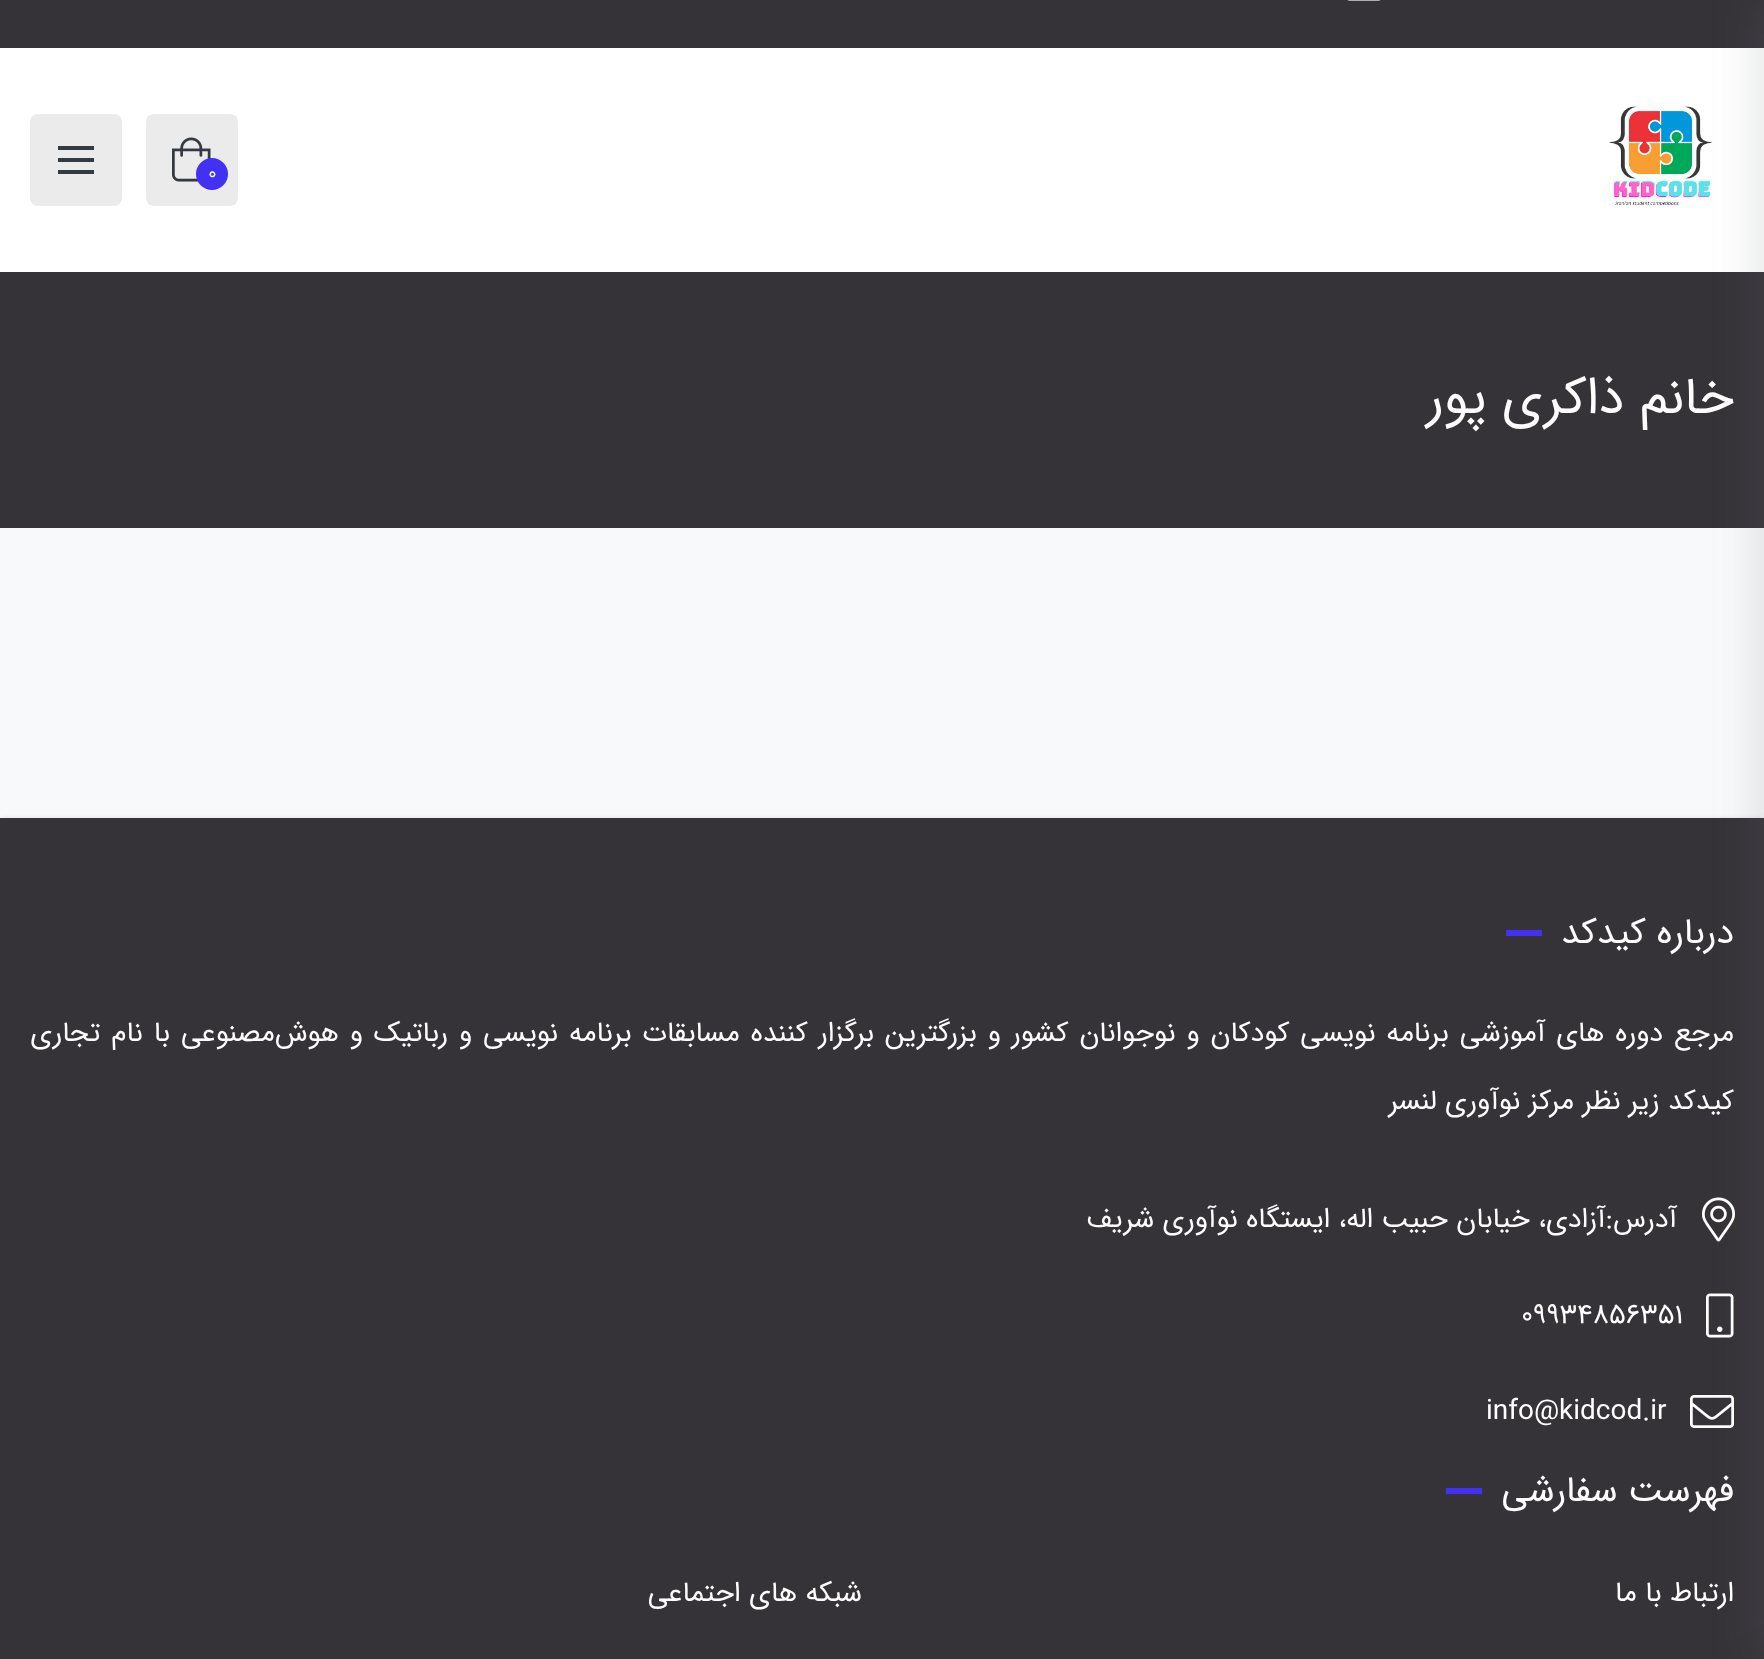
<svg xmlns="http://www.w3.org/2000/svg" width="1764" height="1659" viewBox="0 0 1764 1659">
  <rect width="100%" height="100%" fill="#fff"/>
  <path d="M0 0h1764v48H0z" fill="#353338"/>
  <image x="1609" y="106" width="103" height="100" href="img/2.png"/>
  <path d="M0 272h1764v256H0z" fill="#353338"/>
  <path d="M0 528h1764v290H0z" fill="#f8f9fa"/>
  <path d="M2 820h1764v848H2z" fill="#00000033" filter="blur(3px)"/>
  <path d="M0 818h1764v841H0z" fill="#353338"/>
  <image x="1702" y="1197" width="33" height="45" href="img/4.png"/>
  <image x="1706" y="1293" width="28" height="45" href="img/5.png"/>
  <image x="1690" y="1395" width="44" height="33" href="img/6.png"/>
  <path d="M1754 0h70v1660H1754z" fill="#73767f2b" filter="blur(20px)"/>
  <image x="1347" y="0" width="34" height="1" href="img/1.png"/>
  <rect x="146" y="114" width="92" height="92" rx="8" fill="#ebebeb"/>
  <image x="172" y="137" width="39" height="45" href="img/3.png"/>
  <circle cx="212" cy="174" r="16" fill="#4230f3"/>
  <rect x="30" y="114" width="92" height="92" rx="8" fill="#ebebeb"/>
  <path d="M58 158h36v4H58z" fill="#343a40"/>
  <path d="M58 146h36v4H58z" fill="#343a40"/>
  <path d="M58 170h36v4H58z" fill="#343a40"/>
  <path d="M1506 930h36v6H1506z" fill="#4230f3"/>
  <path d="M1446 1488h36v6H1446z" fill="#4230f3"/>
  <text x="208" y="179" font-family="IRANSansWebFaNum" font-size="20" fill="#fff">0</text>
  <text x="1734" y="413" font-family="IRANSansWebFaNum" font-size="52" direction="rtl" fill="#fff">خانم ذاکری پور</text>
  <text x="1734" y="943" font-family="IRANSansWebFaNum" font-size="36" direction="rtl" fill="#fff">درباره کیدکد</text>
  <g font-family="IRANSansWebFaNum" font-size="28" direction="rtl" fill="#fff">
    <text x="1734" y="1041" word-spacing="2.5">مرجع دوره های آموزشی برنامه نویسی کودکان و نوجوانان کشور و بزرگترین برگزار کننده مسابقات برنامه نویسی و رباتیک و هوش‌مصنوعی با نام تجاری</text>
    <text x="1734" y="1109">کیدکد زیر نظر مرکز نوآوری لنسر</text>
    <text x="1677" y="1227">آدرس:آزادی، خیابان حبیب اله، ایستگاه نوآوری شریف</text>
  </g>
  <g font-family="IRANSansWebFaNum" font-size="28" fill="#fff">
    <text x="1521" y="1323">۰۹۹۳۴۸۵۶۳۵۱</text>
    <text x="1486" y="1419">info@kidcod.ir</text>
  </g>
  <text x="1734" y="1501" font-family="IRANSansWebFaNum" font-size="36" direction="rtl" fill="#fff">فهرست سفارشی</text>
  <g font-family="IRANSansWebFaNum" font-size="28" direction="rtl" fill="#fff">
    <text x="1734" y="1601">ارتباط با ما</text>
    <text x="862" y="1601">شبکه های اجتماعی</text>
  </g>
</svg>
